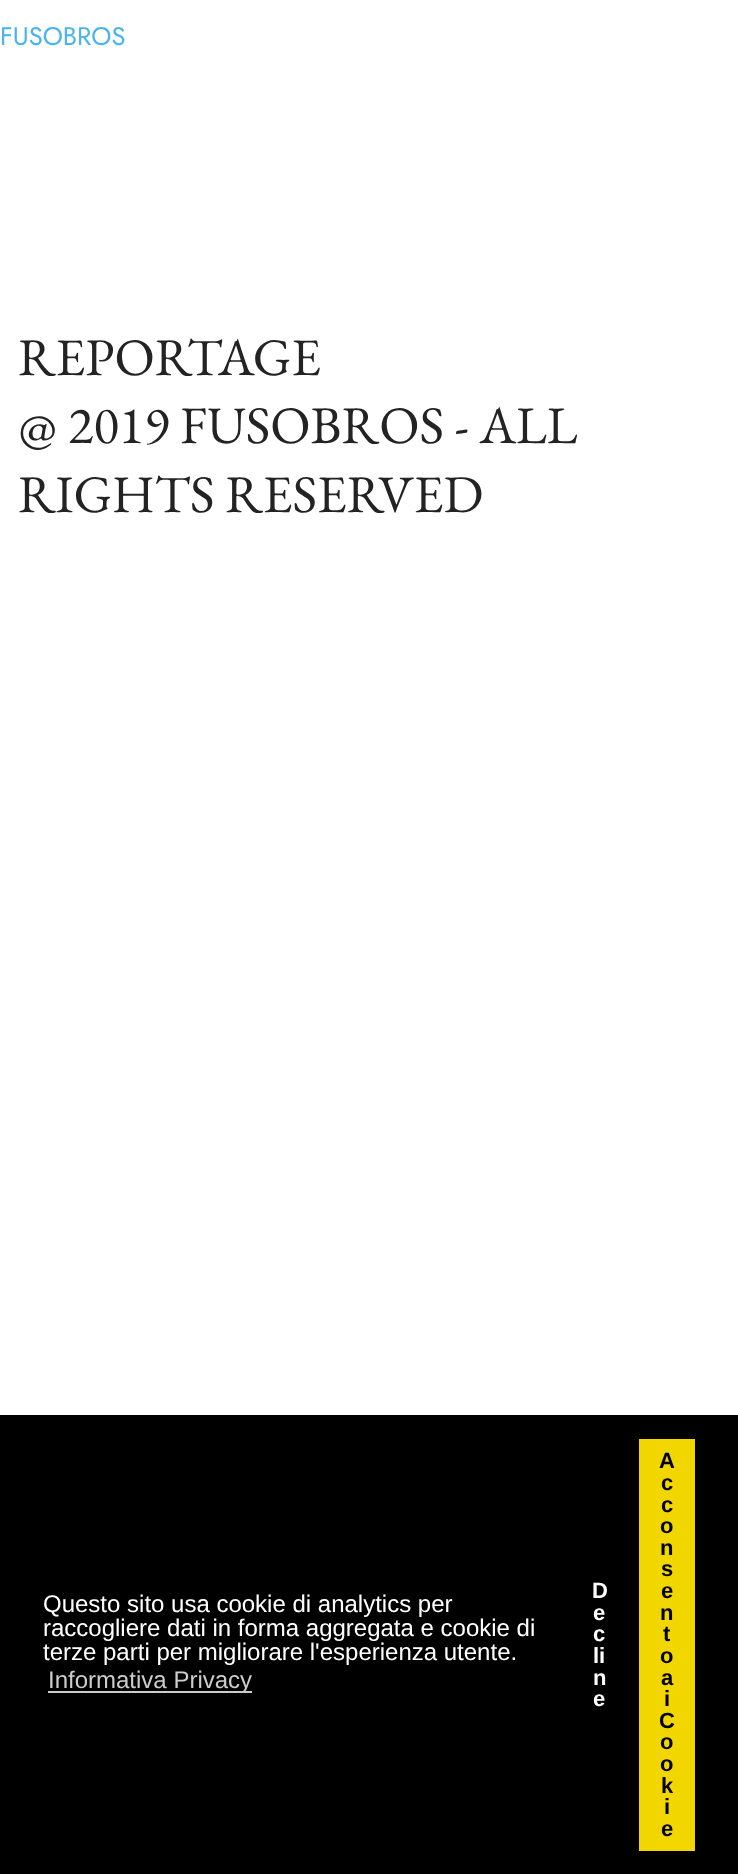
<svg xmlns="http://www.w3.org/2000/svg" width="738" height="1874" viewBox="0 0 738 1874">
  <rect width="100%" height="100%" fill="#fff"/>
  <path d="M0 1415h738v459H0z" fill="#000"/>
  <path d="M48 1691h204v2H48z" fill="#ccc"/>
  <path d="M639 1439h56v412H639z" fill="#f1d600"/>
  <text x="0" y="45" font-family="Jost" font-size="25.5" fill="#47b5ed">FUSOBROS</text>
  <g font-family="EB Garamond" font-size="52.75" fill="#232323">
    <text x="18" y="375">REPORTAGE</text>
    <text x="18" y="443">@ 2019 FUSOBROS - ALL</text>
    <text x="18" y="512">RIGHTS RESERVED</text>
  </g>
  <g font-family="Liberation Sans" font-size="24" fill="#fff">
    <text x="43" y="1612">Questo sito usa cookie di analytics per</text>
    <text x="43" y="1636">raccogliere dati in forma aggregata e cookie di</text>
    <text x="43" y="1660">terze parti per migliorare l'esperienza utente.</text>
  </g>
  <text x="48" y="1688" font-family="Liberation Sans" font-size="24" fill="#ccc">Informativa Privacy</text>
  <g font-family="Liberation Sans" font-size="22" font-weight="bold" fill="#fff">
    <text x="592" y="1598">D</text>
    <text x="593" y="1620">e</text>
    <text x="593" y="1641">c</text>
    <text x="593" y="1663">li</text>
    <text x="593" y="1685">n</text>
    <text x="593" y="1706">e</text>
  </g>
  <g font-family="Liberation Sans" font-size="22" font-weight="bold" fill="#000">
    <text x="659" y="1468">A</text>
    <text x="661" y="1490">c</text>
    <text x="661" y="1512">c</text>
    <text x="660" y="1533">o</text>
    <text x="660" y="1555">n</text>
    <text x="661" y="1576">s</text>
    <text x="661" y="1598">e</text>
    <text x="660" y="1620">n</text>
    <text x="663" y="1641">t</text>
    <text x="660" y="1663">o</text>
    <text x="661" y="1685">a</text>
    <text x="664" y="1706">i</text>
    <text x="659" y="1728">C</text>
    <text x="660" y="1749">o</text>
    <text x="660" y="1771">o</text>
    <text x="661" y="1793">k</text>
    <text x="664" y="1814">i</text>
    <text x="661" y="1836">e</text>
  </g>
</svg>
